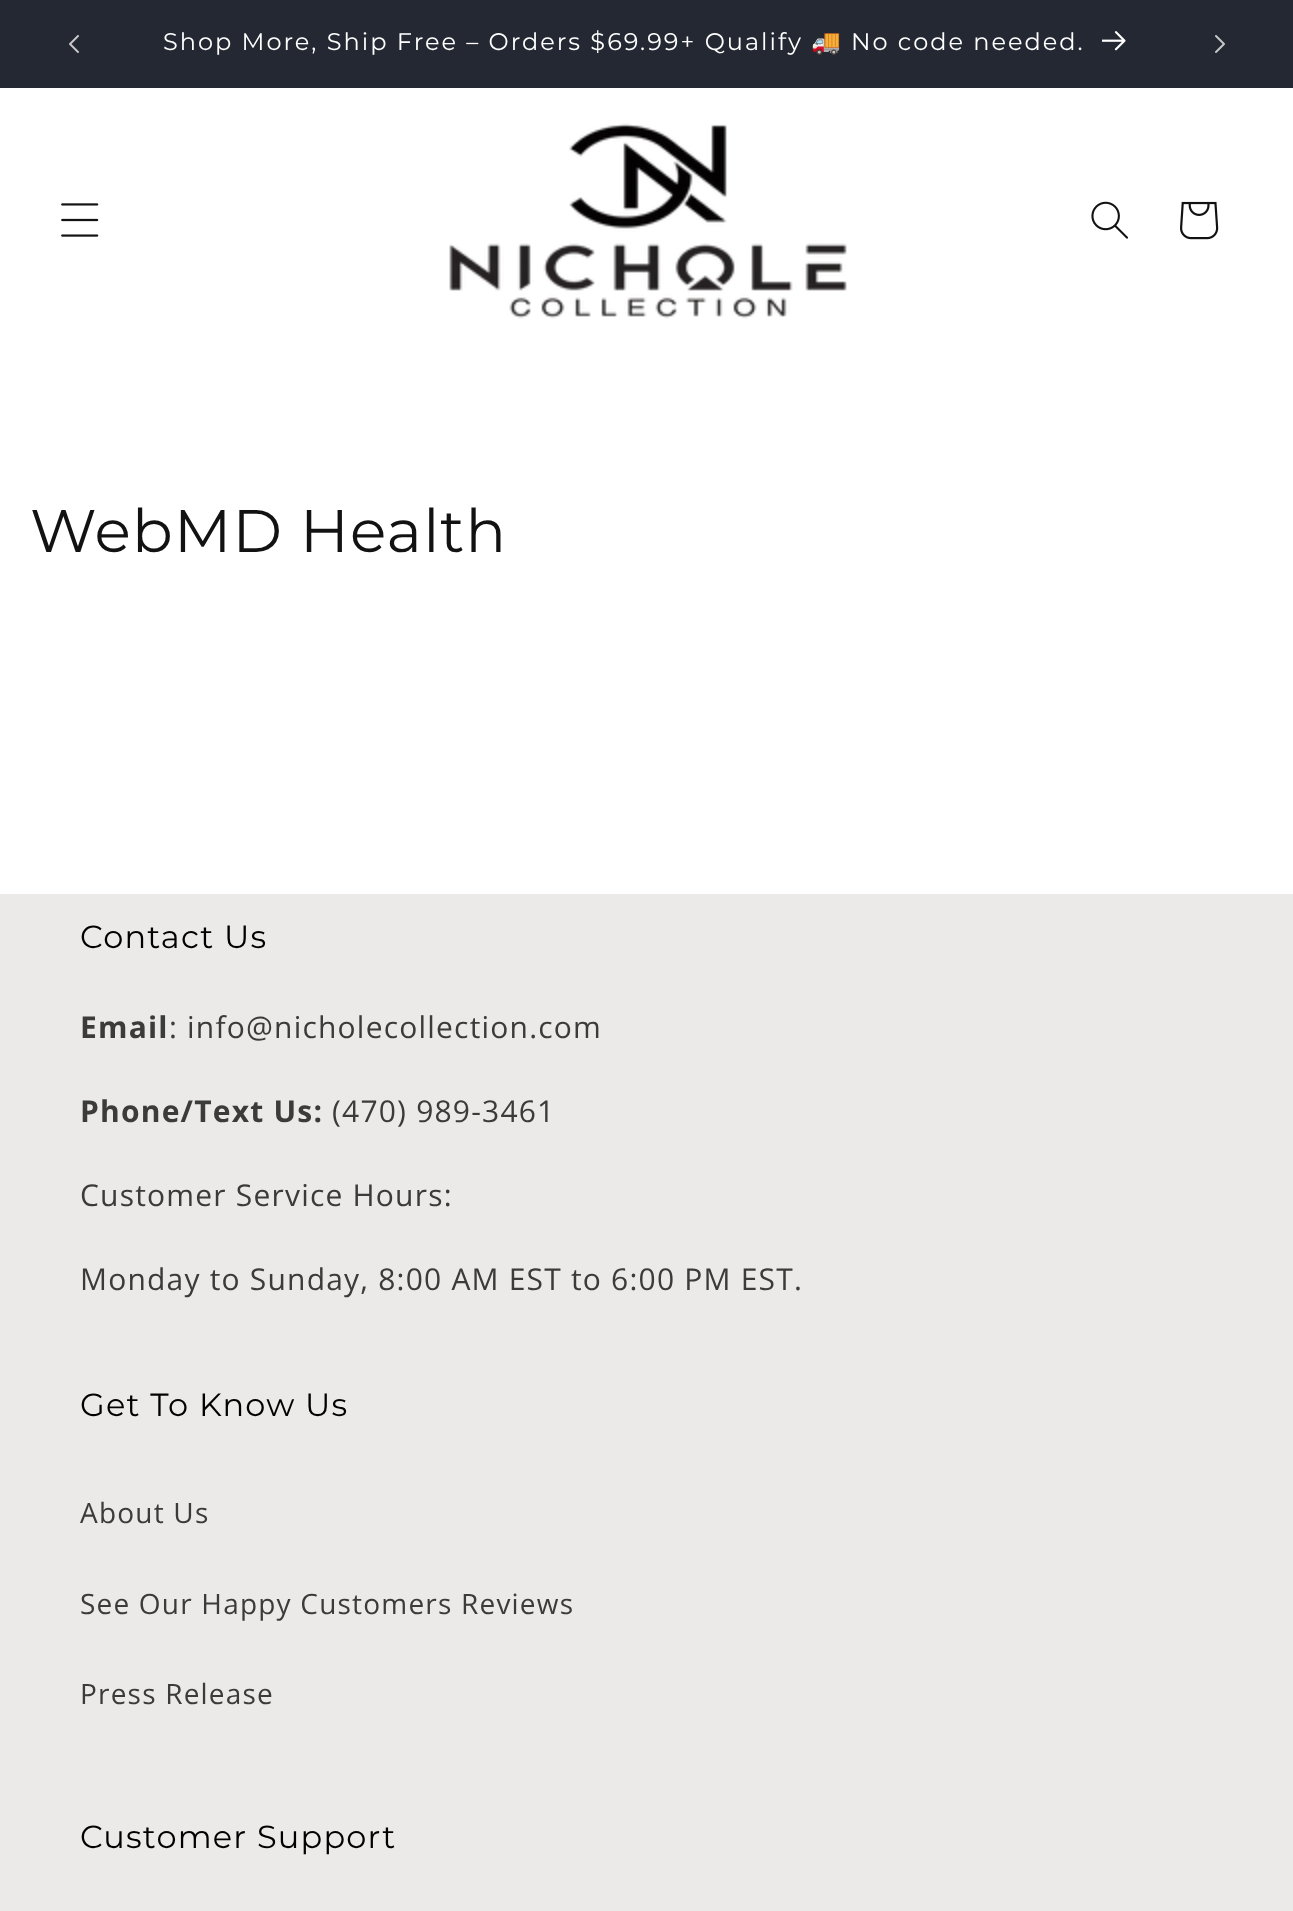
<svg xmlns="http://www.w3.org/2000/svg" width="1293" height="1911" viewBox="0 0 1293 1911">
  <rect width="100%" height="100%" fill="#fff"/>
  <path d="M0 0h1293v88H0z" fill="#242833"/>
  <image x="69" y="35" width="10" height="18" href="img/1.png"/>
  <image x="1102" y="31" width="24" height="20" href="img/2.png"/>
  <image x="1215" y="35" width="10" height="18" href="img/3.png"/>
  <image x="61" y="203" width="38" height="34" href="img/4.png"/>
  <image x="449" y="123" width="398" height="196" href="img/5.png"/>
  <image x="1091" y="201" width="37" height="38" href="img/6.png"/>
  <image x="1180" y="201" width="39" height="39" href="img/7.png"/>
  <path d="M0 894h1293v1017H0z" fill="#ebeae8"/>
  <text x="163" y="50" font-family="Montserrat" font-size="24" letter-spacing="2" fill="#fff">Shop More, Ship Free – Orders $69.99+ Qualify</text>
  <text x="811" y="50" font-family="Noto Color Emoji" font-size="24" letter-spacing="2" fill="#fff">🚚</text>
  <text x="851" y="50" font-family="Montserrat" font-size="24" letter-spacing="2" fill="#fff">No code needed.</text>
  <text x="30" y="552" font-family="Montserrat" font-size="60" letter-spacing="1.2" fill="#121212">WebMD Health</text>
  <text x="80" y="948" font-family="Montserrat" font-size="32" letter-spacing="1.2" fill="#000">Contact Us</text>
  <text x="80" y="1038" font-family="Open Sans" font-size="30" font-weight="bold" letter-spacing="1.2" fill="#3b3b3a">Email</text>
  <text x="169" y="1038" font-family="Open Sans" font-size="30" letter-spacing="1.2" fill="#3b3b3a">: info@nicholecollection.com</text>
  <text x="80" y="1122" font-family="Open Sans" font-size="30" font-weight="bold" letter-spacing="1.2" fill="#3b3b3a">Phone/Text Us:</text>
  <g font-family="Open Sans" font-size="30" letter-spacing="1.2" fill="#3b3b3a">
    <text x="332" y="1122">(470) 989-3461</text>
    <text x="80" y="1206">Customer Service Hours:</text>
    <text x="80" y="1290">Monday to Sunday, 8:00 AM EST to 6:00 PM EST.</text>
  </g>
  <text x="80" y="1416" font-family="Montserrat" font-size="32" letter-spacing="1.2" fill="#000">Get To Know Us</text>
  <g font-family="Open Sans" font-size="28" letter-spacing="1.2" fill="#3b3b3a">
    <text x="80" y="1523">About Us</text>
    <text x="80" y="1614">See Our Happy Customers Reviews</text>
    <text x="80" y="1704">Press Release</text>
  </g>
  <text x="80" y="1848" font-family="Montserrat" font-size="32" letter-spacing="1.2" fill="#000">Customer Support</text>
</svg>
